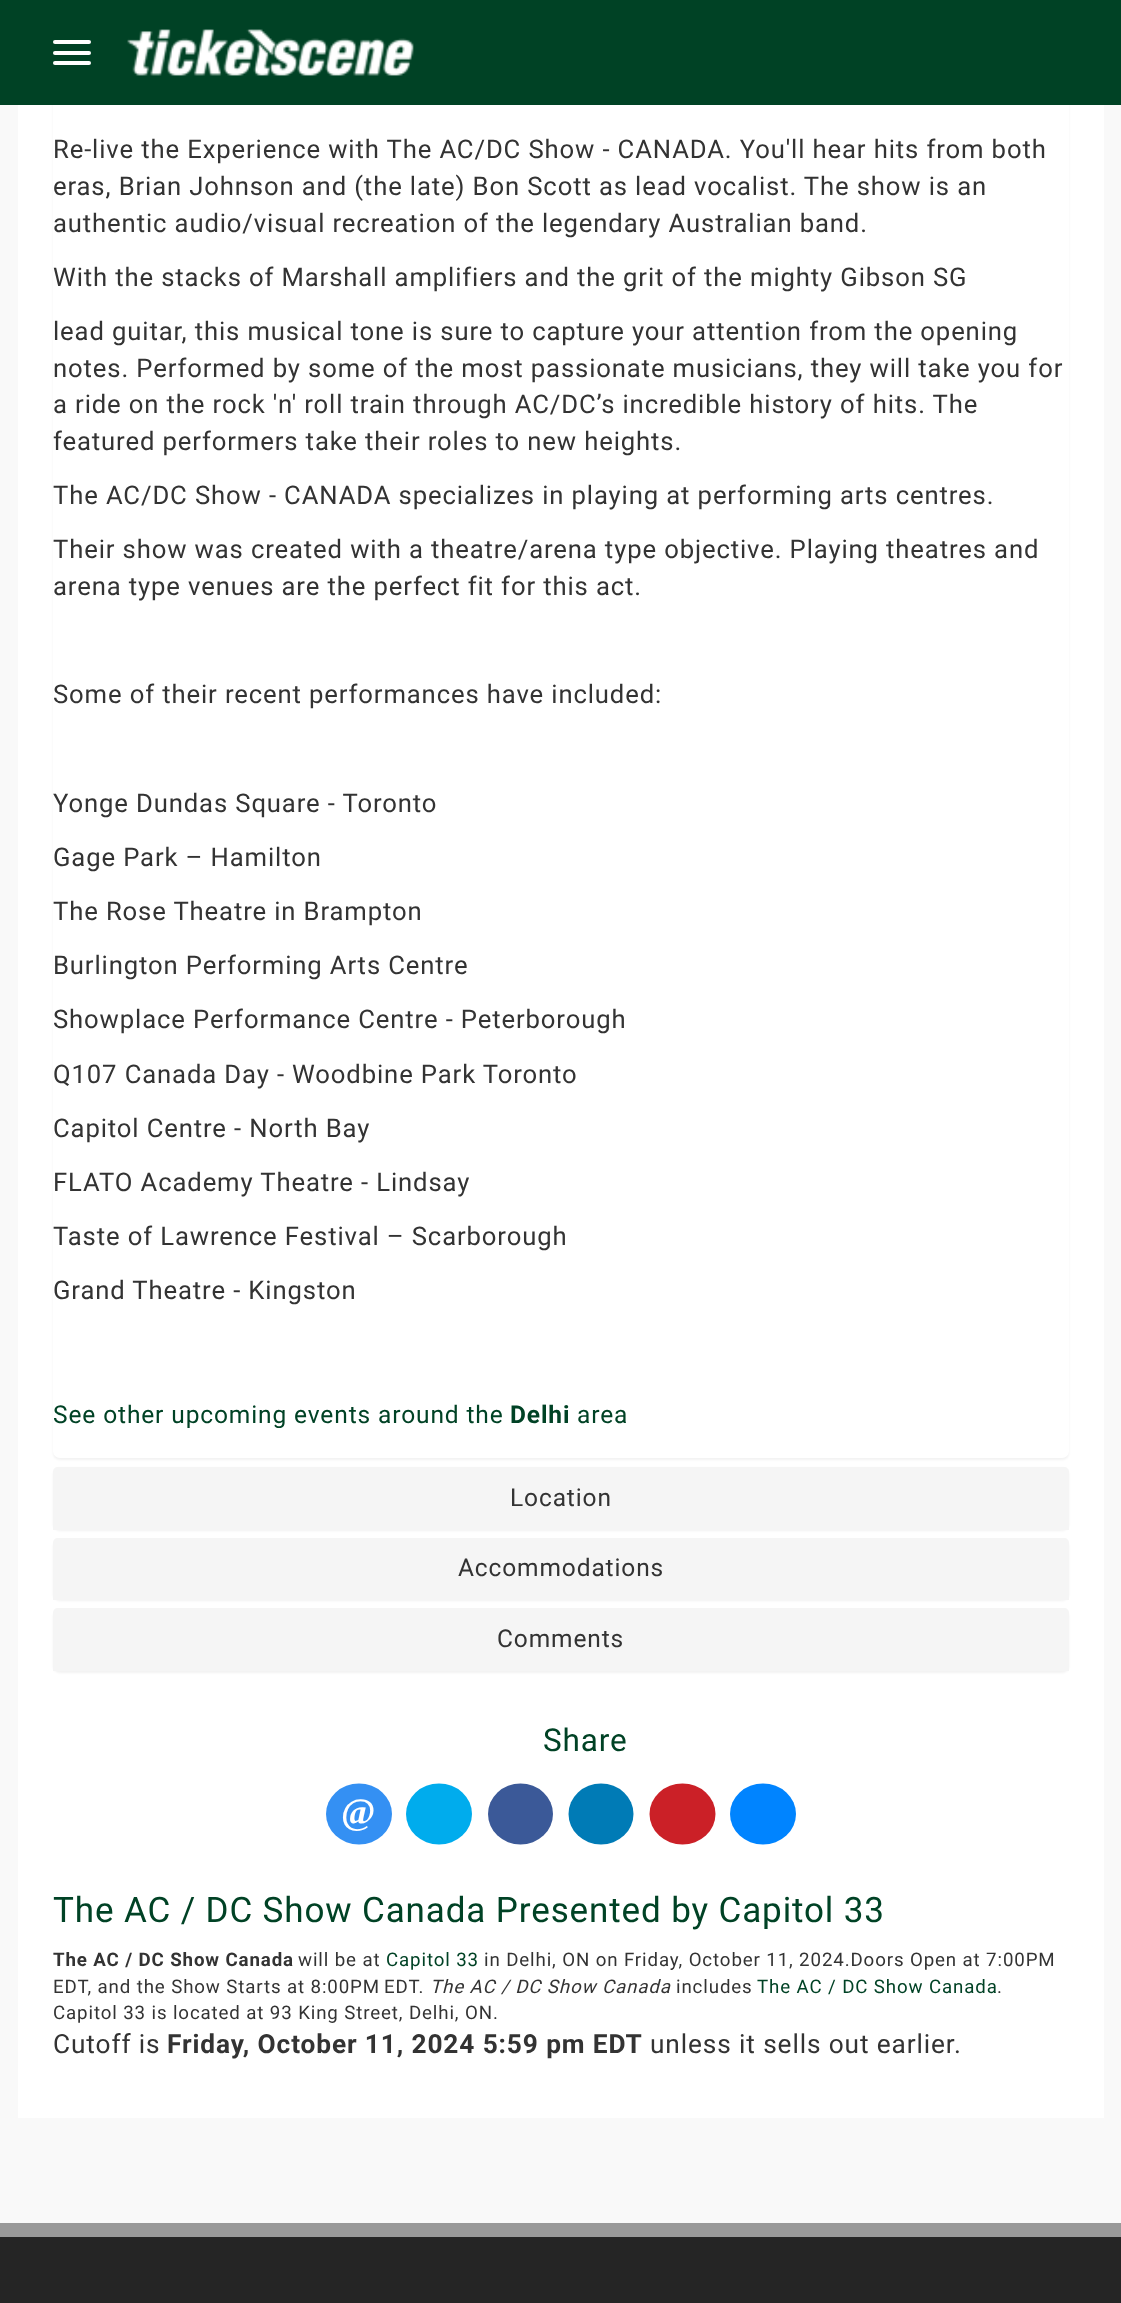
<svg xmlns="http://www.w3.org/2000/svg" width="1121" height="2303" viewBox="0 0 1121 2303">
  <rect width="100%" height="100%" fill="#f9f9f9"/>
  <path d="M18 105h1086v2013H18z" fill="#fff"/>
  <rect x="53" y="-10" width="1016" height="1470" rx="7" fill="#0000000d" filter="blur(1px)"/>
  <rect x="53" y="-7" width="1016" height="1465" rx="7" fill="#fff"/>
  <path d="M0 0h1121v105H0z" fill="#004225"/>
  <rect x="53" y="40" width="38" height="4" rx="2" fill="#fff"/>
  <rect x="53" y="51" width="38" height="4" rx="2" fill="#fff"/>
  <rect x="53" y="61" width="38" height="4" rx="2" fill="#fff"/>
  <image x="127" y="29" width="287" height="47" href="img/1.png"/>
  <rect x="53" y="1468" width="1016" height="63" rx="7" fill="#0000000d" filter="blur(1px)"/>
  <path d="M58 1467H1064C1067 1467 1069 1469 1069 1472V1530H53V1472C53 1469 55 1467 58 1467Z" fill="#f5f5f5"/>
  <rect x="53" y="1540" width="1016" height="61" rx="7" fill="#0000000d" filter="blur(1px)"/>
  <path d="M58 1538H1064C1067 1538 1069 1540 1069 1543V1600H53V1543C53 1540 55 1538 58 1538Z" fill="#f5f5f5"/>
  <rect x="53" y="1610" width="1016" height="63" rx="7" fill="#0000000d" filter="blur(1px)"/>
  <path d="M58 1608H1064C1067 1608 1069 1610 1069 1613V1671H53V1613C53 1610 55 1608 58 1608Z" fill="#f5f5f5"/>
  <ellipse cx="359" cy="1814" rx="33" ry="30.5" fill="#3490f3"/>
  <ellipse cx="439" cy="1814" rx="33" ry="30.5" fill="#00aced"/>
  <ellipse cx="520.5" cy="1814" rx="32.5" ry="30.5" fill="#3b5998"/>
  <ellipse cx="601" cy="1814" rx="32.5" ry="30.5" fill="#007bb6"/>
  <ellipse cx="682.5" cy="1814" rx="33" ry="30.5" fill="#cb2027"/>
  <ellipse cx="763" cy="1814" rx="33" ry="30.5" fill="#0084ff"/>
  <path d="M0 2237h1121v66H0z" fill="#252525"/>
  <path d="M0 2223h1121v14H0z" fill="#999"/>
  <g font-family="Roboto" font-size="25.65" letter-spacing="0.88" fill="#333">
    <text x="53" y="158">Re-live the Experience with The AC/DC Show - CANADA. You'll hear hits from both</text>
    <text x="53" y="195">eras, Brian Johnson and (the late) Bon Scott as lead vocalist. The show is an</text>
    <text x="53" y="232">authentic audio/visual recreation of the legendary Australian band.</text>
    <text x="53" y="286">With the stacks of Marshall amplifiers and the grit of the mighty Gibson SG</text>
    <text x="53" y="340">lead guitar, this musical tone is sure to capture your attention from the opening</text>
    <text x="53" y="377">notes. Performed by some of the most passionate musicians, they will take you for</text>
    <text x="53" y="413">a ride on the rock 'n' roll train through AC/DC’s incredible history of hits. The</text>
    <text x="53" y="450">featured performers take their roles to new heights.</text>
    <text x="53" y="504">The AC/DC Show - CANADA specializes in playing at performing arts centres.</text>
    <text x="53" y="558">Their show was created with a theatre/arena type objective. Playing theatres and</text>
    <text x="53" y="595">arena type venues are the perfect fit for this act.</text>
    <text x="53" y="703">Some of their recent performances have included:</text>
    <text x="53" y="812">Yonge Dundas Square - Toronto</text>
    <text x="53" y="866">Gage Park – Hamilton</text>
    <text x="53" y="920">The Rose Theatre in Brampton</text>
    <text x="53" y="974">Burlington Performing Arts Centre</text>
    <text x="53" y="1028">Showplace Performance Centre - Peterborough</text>
    <text x="53" y="1083">Q107 Canada Day - Woodbine Park Toronto</text>
    <text x="53" y="1137">Capitol Centre - North Bay</text>
    <text x="53" y="1191">FLATO Academy Theatre - Lindsay</text>
    <text x="53" y="1245">Taste of Lawrence Festival – Scarborough</text>
    <text x="53" y="1299">Grand Theatre - Kingston</text>
  </g>
  <text x="53" y="1423" font-family="Roboto" font-size="24.5" letter-spacing="0.88" fill="#004225">See other upcoming events around the</text>
  <text x="510" y="1423" font-family="Roboto" font-size="24.5" font-weight="bold" letter-spacing="0.88" fill="#004225">Delhi</text>
  <text x="577" y="1423" font-family="Roboto" font-size="24.5" letter-spacing="0.88" fill="#004225">area</text>
  <g font-family="Roboto" font-size="24.5" letter-spacing="0.88" fill="#333">
    <text x="510" y="1506">Location</text>
    <text x="458" y="1576">Accommodations</text>
    <text x="497" y="1647">Comments</text>
  </g>
  <text x="543" y="1751" font-family="Roboto" font-size="31.5" letter-spacing="0.88" fill="#004225">Share</text>
  <text x="341" y="1824" font-family="Liberation Serif" font-size="37" font-weight="bold" letter-spacing="0.88" fill="#fff">@</text>
  <text x="53" y="1922" font-family="Roboto" font-size="35" letter-spacing="0.88" fill="#004225">The AC / DC Show Canada Presented by Capitol 33</text>
  <text x="53" y="1966" font-family="Roboto" font-size="18.7" font-weight="bold" letter-spacing="0.88" fill="#333">The AC / DC Show Canada</text>
  <text x="298" y="1966" font-family="Roboto" font-size="18.7" letter-spacing="0.88" fill="#333">will be at</text>
  <text x="386" y="1966" font-family="Roboto" font-size="18.7" letter-spacing="0.88" fill="#004225">Capitol 33</text>
  <g font-family="Roboto" font-size="18.7" letter-spacing="0.88" fill="#333">
    <text x="484" y="1966">in Delhi, ON on Friday, October 11, 2024.Doors Open at 7:00PM</text>
    <text x="53" y="1993">EDT, and the Show Starts at 8:00PM</text>
    <text x="384" y="1993">EDT.</text>
  </g>
  <text x="430" y="1993" font-family="Roboto" font-size="18.7" font-style="italic" letter-spacing="0.88" fill="#333">The AC / DC Show Canada</text>
  <text x="676" y="1993" font-family="Roboto" font-size="18.7" letter-spacing="0.88" fill="#333">includes</text>
  <text x="757" y="1993" font-family="Roboto" font-size="18.7" letter-spacing="0.88" fill="#004225">The AC / DC Show Canada</text>
  <g font-family="Roboto" font-size="18.7" letter-spacing="0.88" fill="#333">
    <text x="997" y="1993">.</text>
    <text x="53" y="2019">Capitol 33 is located at 93 King Street, Delhi, ON.</text>
  </g>
  <text x="53" y="2053" font-family="Roboto" font-size="26.25" letter-spacing="0.88" fill="#333">Cutoff is</text>
  <text x="167" y="2053" font-family="Roboto" font-size="26.25" font-weight="bold" letter-spacing="0.88" fill="#333">Friday, October 11, 2024 5:59 pm EDT</text>
  <text x="650" y="2053" font-family="Roboto" font-size="26.25" letter-spacing="0.88" fill="#333">unless it sells out earlier.</text>
</svg>
